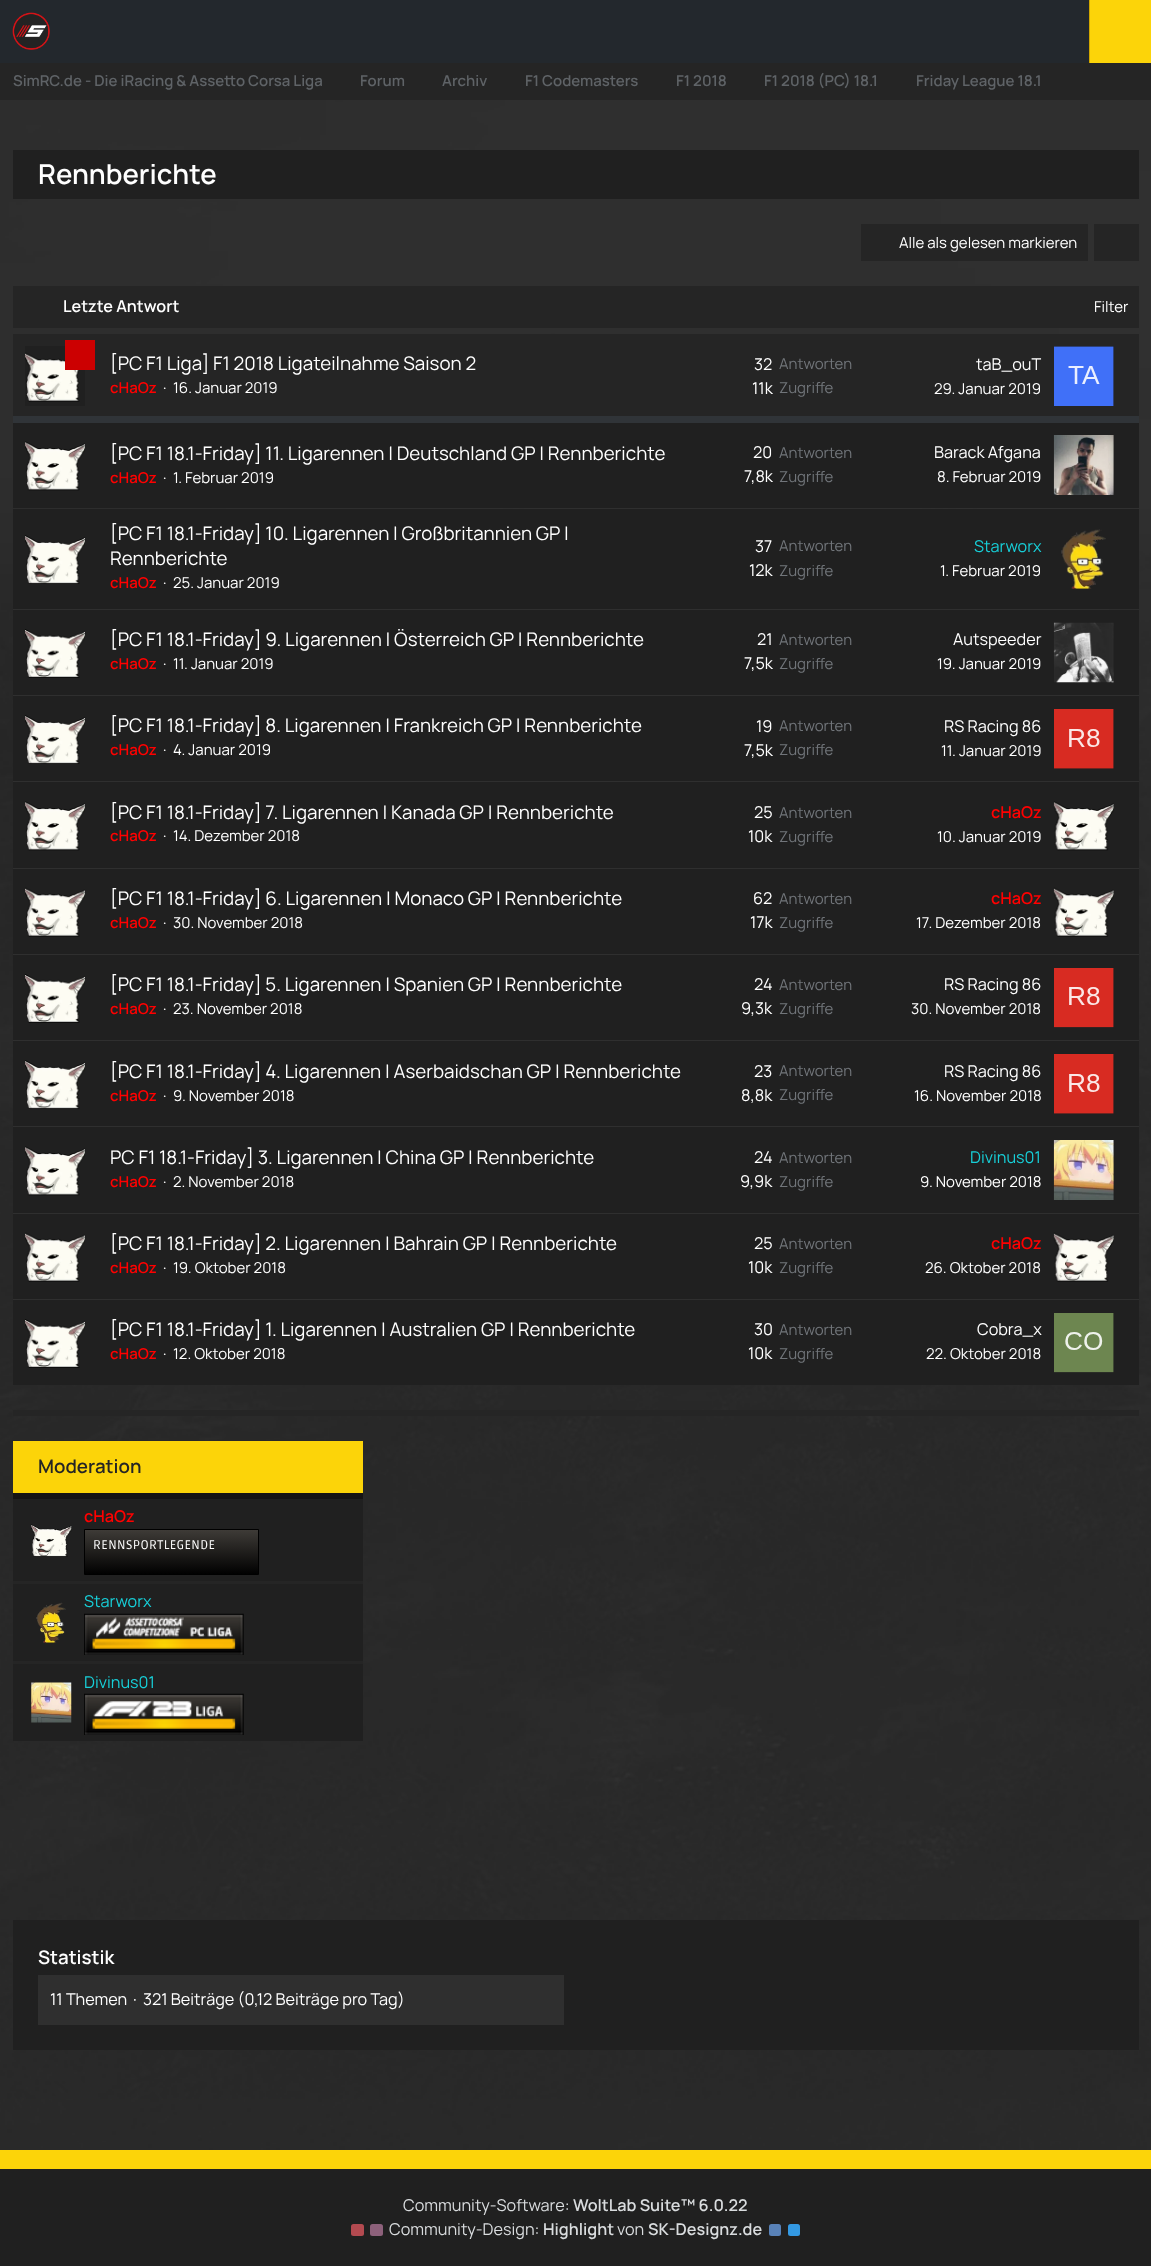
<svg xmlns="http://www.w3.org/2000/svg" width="1151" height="2266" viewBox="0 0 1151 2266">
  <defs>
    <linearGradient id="g1" gradientUnits="userSpaceOnUse" x1="171" y1="1530" x2="171" y2="1574"><stop offset="0" stop-color="#3e3b37"/><stop offset="1" stop-color="#010101"/></linearGradient>
  </defs>
  <rect width="100%" height="100%" fill="#fff"/>
  <image x="0" y="100" width="1151" height="2050" href="img/1.png"/>
  <path d="M0 0h1089v63H0z" fill="#23282d"/>
  <image x="12" y="12" width="38" height="38" href="img/2.png"/>
  <path d="M1090 0h61v63H1090z" fill="#fcd409"/>
  <path d="M1089 0h1v63H1089z" fill="#d1a700"/>
  <path d="M0 63h1151v37H0z" fill="#252525"/>
  <path d="M13 150h1126v49H13z" fill="#202020"/>
  <path d="M861 224h227v37H861z" fill="#252525"/>
  <path d="M1094 224h45v37H1094z" fill="#252525"/>
  <path d="M13 286h1126v42H13z" fill="#252525"/>
  <path d="M13 334h1126v82H13z" fill="#252525"/>
  <path d="M25 346h60v60H25z" fill="#202020"/>
  <image x="25" y="352" width="55" height="50" href="img/3.png"/>
  <path d="M65 340h30v30H65z" fill="#cc0001"/>
  <path d="M1054 346h60v60H1054z" fill="#202020"/>
  <image x="1054" y="346" width="60" height="60" href="img/4.png"/>
  <path d="M13 423h1126v85H13z" fill="#202020"/>
  <path d="M13 416h1126v7H13z" fill="#303438"/>
  <image x="25" y="441" width="60" height="50" href="img/5.png"/>
  <image x="1053" y="435" width="61" height="60" href="img/6.png"/>
  <path d="M13 509h1126v100H13z" fill="#202020"/>
  <path d="M13 609h1096v1H13z" fill="#2f2f2f"/>
  <image x="25" y="535" width="60" height="49" href="img/7.png"/>
  <image x="1061" y="529" width="45" height="60" href="img/8.png"/>
  <path d="M13 610h1126v85H13z" fill="#202020"/>
  <path d="M13 695h1126v1H13z" fill="#2f2f2f"/>
  <image x="25" y="629" width="60" height="49" href="img/9.png"/>
  <image x="1053" y="622" width="61" height="61" href="img/10.png"/>
  <path d="M13 696h1126v172H13z" fill="#202020"/>
  <path d="M13 781h1126v1H13z" fill="#2f2f2f"/>
  <image x="25" y="715" width="60" height="49" href="img/7.png"/>
  <image x="1054" y="709" width="60" height="60" href="img/11.png"/>
  <path d="M13 868h1126v1H13z" fill="#2f2f2f"/>
  <image x="25" y="801" width="60" height="50" href="img/5.png"/>
  <image x="1053" y="801" width="61" height="50" href="img/12.png"/>
  <path d="M13 869h1126v85H13z" fill="#202020"/>
  <path d="M13 954h1126v1H13z" fill="#2f2f2f"/>
  <image x="25" y="887" width="60" height="50" href="img/13.png"/>
  <image x="1053" y="887" width="61" height="50" href="img/14.png"/>
  <path d="M13 955h1126v85H13z" fill="#202020"/>
  <path d="M13 1040h1126v1H13z" fill="#2f2f2f"/>
  <image x="25" y="974" width="60" height="49" href="img/9.png"/>
  <image x="1054" y="968" width="60" height="60" href="img/15.png"/>
  <path d="M13 1041h1126v172H13z" fill="#202020"/>
  <path d="M13 1126h1126v1H13z" fill="#2f2f2f"/>
  <image x="25" y="1060" width="60" height="49" href="img/7.png"/>
  <image x="1054" y="1054" width="60" height="60" href="img/11.png"/>
  <path d="M13 1213h1126v1H13z" fill="#2f2f2f"/>
  <image x="25" y="1146" width="60" height="50" href="img/5.png"/>
  <image x="1053" y="1140" width="61" height="60" href="img/16.png"/>
  <path d="M13 1214h1126v85H13z" fill="#202020"/>
  <path d="M13 1299h1126v1H13z" fill="#2f2f2f"/>
  <image x="25" y="1232" width="60" height="50" href="img/13.png"/>
  <image x="1053" y="1232" width="61" height="50" href="img/14.png"/>
  <path d="M13 1300h1126v85H13z" fill="#202020"/>
  <image x="25" y="1319" width="60" height="49" href="img/9.png"/>
  <image x="1054" y="1313" width="60" height="60" href="img/17.png"/>
  <path d="M13 1410h1126v6H13z" fill="#252525"/>
  <path d="M13 1499h350v242H13z" fill="#202020"/>
  <path d="M13 1441h350v52H13z" fill="#fcd409"/>
  <path d="M13 1493h350v6H13z" fill="#161414"/>
  <image x="31" y="1524" width="41" height="33" href="img/18.png"/>
  <path d="M85 1530h173v44H85z" fill="url(#g1)"/>
  <path d="M84.5 1529.5h174v45H84.5z" fill="none" stroke="#000"/>
  <path d="M13 1581h350v3H13z" fill="#252525"/>
  <image x="36" y="1602" width="30" height="41" href="img/19.png"/>
  <image x="84" y="1613" width="160" height="42" href="img/20.png"/>
  <path d="M13 1661h350v3H13z" fill="#252525"/>
  <image x="31" y="1682" width="41" height="41" href="img/21.png"/>
  <image x="84" y="1693" width="160" height="42" href="img/22.png"/>
  <path d="M13 1920h1126v130H13z" fill="#202020"/>
  <path d="M38 1975h526v50H38z" fill="#2f2f2f"/>
  <path d="M0 2150h1151v19H0z" fill="#fcd409"/>
  <path d="M0 2169h1151v97H0z" fill="#202020"/>
  <rect x="351" y="2224" width="13" height="12" rx="2.5" fill="#b34a50"/>
  <rect x="370" y="2224" width="13" height="12" rx="2.5" fill="#8d617b"/>
  <rect x="769" y="2224" width="12" height="12" rx="2.5" fill="#5982b8"/>
  <rect x="788" y="2224" width="12" height="12" rx="2.5" fill="#3399e3"/>
  <g font-family="Manrope" font-size="15" font-weight="600" fill="#5f6367">
    <text x="13" y="86">SimRC.de - Die iRacing &amp; Assetto Corsa Liga</text>
    <text x="360" y="86">Forum</text>
    <text x="442" y="86">Archiv</text>
    <text x="525" y="86">F1 Codemasters</text>
    <text x="676" y="86">F1 2018</text>
    <text x="764" y="86">F1 2018 (PC) 18.1</text>
    <text x="916" y="86">Friday League 18.1</text>
  </g>
  <text x="38" y="184" font-family="Manrope" font-size="27.5" font-weight="600" fill="#fff">Rennberichte</text>
  <text x="899" y="248" font-family="Manrope" font-size="15" fill="#fff">Alle als gelesen markieren</text>
  <text x="63" y="312" font-family="Manrope" font-size="16.25" font-weight="600" fill="#fff">Letzte Antwort</text>
  <text x="1094" y="312" font-family="Manrope" font-size="15" fill="#fff">Filter</text>
  <text x="110" y="370" font-family="Manrope" font-size="18.75" fill="#fff">[PC F1 Liga] F1 2018 Ligateilnahme Saison 2</text>
  <text x="110" y="393" font-family="Manrope" font-size="15" font-weight="600" fill="#f00">cHaOz</text>
  <g font-family="Manrope" font-size="15" fill="#fff">
    <text x="163" y="393">·</text>
    <text x="173" y="393">16. Januar 2019</text>
  </g>
  <text x="754" y="370" font-family="Manrope" font-size="16.25" fill="#fff">32</text>
  <text x="779" y="369" font-family="Manrope" font-size="15" fill="#71757a">Antworten</text>
  <text x="752" y="394" font-family="Manrope" font-size="16.25" fill="#fff">11k</text>
  <text x="779" y="393" font-family="Manrope" font-size="15" fill="#71757a">Zugriffe</text>
  <text x="976" y="370" font-family="Manrope" font-size="16.25" fill="#fff">taB_ouT</text>
  <text x="934" y="394" font-family="Manrope" font-size="15" fill="#fff">29. Januar 2019</text>
  <text x="110" y="460" font-family="Manrope" font-size="18.75" fill="#fff">[PC F1 18.1-Friday] 11. Ligarennen | Deutschland GP | Rennberichte</text>
  <text x="110" y="483" font-family="Manrope" font-size="15" font-weight="600" fill="#f00">cHaOz</text>
  <g font-family="Manrope" font-size="15" fill="#fff">
    <text x="163" y="483">·</text>
    <text x="173" y="483">1. Februar 2019</text>
  </g>
  <text x="753" y="458" font-family="Manrope" font-size="16.25" fill="#fff">20</text>
  <text x="779" y="458" font-family="Manrope" font-size="15" fill="#71757a">Antworten</text>
  <text x="744" y="482" font-family="Manrope" font-size="16.25" fill="#fff">7,8k</text>
  <text x="779" y="482" font-family="Manrope" font-size="15" fill="#71757a">Zugriffe</text>
  <text x="934" y="458" font-family="Manrope" font-size="16.25" fill="#fff">Barack Afgana</text>
  <text x="937" y="482" font-family="Manrope" font-size="15" fill="#fff">8. Februar 2019</text>
  <g font-family="Manrope" font-size="18.75" fill="#fff">
    <text x="110" y="540">[PC F1 18.1-Friday] 10. Ligarennen | Großbritannien GP |</text>
    <text x="110" y="565">Rennberichte</text>
  </g>
  <text x="110" y="588" font-family="Manrope" font-size="15" font-weight="600" fill="#f00">cHaOz</text>
  <g font-family="Manrope" font-size="15" fill="#fff">
    <text x="163" y="588">·</text>
    <text x="173" y="588">25. Januar 2019</text>
  </g>
  <text x="755" y="552" font-family="Manrope" font-size="16.25" fill="#fff">37</text>
  <text x="779" y="551" font-family="Manrope" font-size="15" fill="#71757a">Antworten</text>
  <text x="749" y="576" font-family="Manrope" font-size="16.25" fill="#fff">12k</text>
  <text x="779" y="576" font-family="Manrope" font-size="15" fill="#71757a">Zugriffe</text>
  <text x="974" y="552" font-family="Manrope" font-size="16.25" fill="#17cfd8">Starworx</text>
  <text x="940" y="576" font-family="Manrope" font-size="15" fill="#fff">1. Februar 2019</text>
  <text x="110" y="646" font-family="Manrope" font-size="18.75" fill="#fff">[PC F1 18.1-Friday] 9. Ligarennen | Österreich GP | Rennberichte</text>
  <text x="110" y="669" font-family="Manrope" font-size="15" font-weight="600" fill="#f00">cHaOz</text>
  <g font-family="Manrope" font-size="15" fill="#fff">
    <text x="163" y="669">·</text>
    <text x="173" y="669">11. Januar 2019</text>
  </g>
  <text x="757" y="645" font-family="Manrope" font-size="16.25" fill="#fff">21</text>
  <text x="779" y="645" font-family="Manrope" font-size="15" fill="#71757a">Antworten</text>
  <text x="744" y="669" font-family="Manrope" font-size="16.25" fill="#fff">7,5k</text>
  <text x="779" y="669" font-family="Manrope" font-size="15" fill="#71757a">Zugriffe</text>
  <text x="953" y="645" font-family="Manrope" font-size="16.25" fill="#fff">Autspeeder</text>
  <text x="937" y="669" font-family="Manrope" font-size="15" fill="#fff">19. Januar 2019</text>
  <text x="110" y="732" font-family="Manrope" font-size="18.75" fill="#fff">[PC F1 18.1-Friday] 8. Ligarennen | Frankreich GP | Rennberichte</text>
  <text x="110" y="755" font-family="Manrope" font-size="15" font-weight="600" fill="#f00">cHaOz</text>
  <g font-family="Manrope" font-size="15" fill="#fff">
    <text x="163" y="755">·</text>
    <text x="173" y="755">4. Januar 2019</text>
  </g>
  <text x="756" y="732" font-family="Manrope" font-size="16.25" fill="#fff">19</text>
  <text x="779" y="731" font-family="Manrope" font-size="15" fill="#71757a">Antworten</text>
  <text x="744" y="756" font-family="Manrope" font-size="16.25" fill="#fff">7,5k</text>
  <text x="779" y="755" font-family="Manrope" font-size="15" fill="#71757a">Zugriffe</text>
  <text x="944" y="732" font-family="Manrope" font-size="16.25" fill="#fff">RS Racing 86</text>
  <text x="941" y="756" font-family="Manrope" font-size="15" fill="#fff">11. Januar 2019</text>
  <text x="110" y="819" font-family="Manrope" font-size="18.75" fill="#fff">[PC F1 18.1-Friday] 7. Ligarennen | Kanada GP | Rennberichte</text>
  <text x="110" y="841" font-family="Manrope" font-size="15" font-weight="600" fill="#f00">cHaOz</text>
  <g font-family="Manrope" font-size="15" fill="#fff">
    <text x="163" y="841">·</text>
    <text x="173" y="841">14. Dezember 2018</text>
  </g>
  <text x="754" y="818" font-family="Manrope" font-size="16.25" fill="#fff">25</text>
  <text x="779" y="818" font-family="Manrope" font-size="15" fill="#71757a">Antworten</text>
  <text x="748" y="842" font-family="Manrope" font-size="16.25" fill="#fff">10k</text>
  <text x="779" y="842" font-family="Manrope" font-size="15" fill="#71757a">Zugriffe</text>
  <text x="991" y="818" font-family="Manrope" font-size="16.25" font-weight="600" fill="#f00">cHaOz</text>
  <text x="937" y="842" font-family="Manrope" font-size="15" fill="#fff">10. Januar 2019</text>
  <text x="110" y="905" font-family="Manrope" font-size="18.75" fill="#fff">[PC F1 18.1-Friday] 6. Ligarennen | Monaco GP | Rennberichte</text>
  <text x="110" y="928" font-family="Manrope" font-size="15" font-weight="600" fill="#f00">cHaOz</text>
  <g font-family="Manrope" font-size="15" fill="#fff">
    <text x="163" y="928">·</text>
    <text x="173" y="928">30. November 2018</text>
  </g>
  <text x="753" y="904" font-family="Manrope" font-size="16.25" fill="#fff">62</text>
  <text x="779" y="904" font-family="Manrope" font-size="15" fill="#71757a">Antworten</text>
  <text x="750" y="928" font-family="Manrope" font-size="16.25" fill="#fff">17k</text>
  <text x="779" y="928" font-family="Manrope" font-size="15" fill="#71757a">Zugriffe</text>
  <text x="991" y="904" font-family="Manrope" font-size="16.25" font-weight="600" fill="#f00">cHaOz</text>
  <text x="916" y="928" font-family="Manrope" font-size="15" fill="#fff">17. Dezember 2018</text>
  <text x="110" y="991" font-family="Manrope" font-size="18.75" fill="#fff">[PC F1 18.1-Friday] 5. Ligarennen | Spanien GP | Rennberichte</text>
  <text x="110" y="1014" font-family="Manrope" font-size="15" font-weight="600" fill="#f00">cHaOz</text>
  <g font-family="Manrope" font-size="15" fill="#fff">
    <text x="163" y="1014">·</text>
    <text x="173" y="1014">23. November 2018</text>
  </g>
  <text x="754" y="990" font-family="Manrope" font-size="16.25" fill="#fff">24</text>
  <text x="779" y="990" font-family="Manrope" font-size="15" fill="#71757a">Antworten</text>
  <text x="741" y="1014" font-family="Manrope" font-size="16.25" fill="#fff">9,3k</text>
  <text x="779" y="1014" font-family="Manrope" font-size="15" fill="#71757a">Zugriffe</text>
  <text x="944" y="990" font-family="Manrope" font-size="16.25" fill="#fff">RS Racing 86</text>
  <text x="911" y="1014" font-family="Manrope" font-size="15" fill="#fff">30. November 2018</text>
  <text x="110" y="1078" font-family="Manrope" font-size="18.75" fill="#fff">[PC F1 18.1-Friday] 4. Ligarennen | Aserbaidschan GP | Rennberichte</text>
  <text x="110" y="1101" font-family="Manrope" font-size="15" font-weight="600" fill="#f00">cHaOz</text>
  <g font-family="Manrope" font-size="15" fill="#fff">
    <text x="163" y="1101">·</text>
    <text x="173" y="1101">9. November 2018</text>
  </g>
  <text x="754" y="1077" font-family="Manrope" font-size="16.25" fill="#fff">23</text>
  <text x="779" y="1076" font-family="Manrope" font-size="15" fill="#71757a">Antworten</text>
  <text x="741" y="1101" font-family="Manrope" font-size="16.25" fill="#fff">8,8k</text>
  <text x="779" y="1100" font-family="Manrope" font-size="15" fill="#71757a">Zugriffe</text>
  <text x="944" y="1077" font-family="Manrope" font-size="16.25" fill="#fff">RS Racing 86</text>
  <text x="914" y="1101" font-family="Manrope" font-size="15" fill="#fff">16. November 2018</text>
  <text x="110" y="1164" font-family="Manrope" font-size="18.75" fill="#fff">PC F1 18.1-Friday] 3. Ligarennen | China GP | Rennberichte</text>
  <text x="110" y="1187" font-family="Manrope" font-size="15" font-weight="600" fill="#f00">cHaOz</text>
  <g font-family="Manrope" font-size="15" fill="#fff">
    <text x="163" y="1187">·</text>
    <text x="173" y="1187">2. November 2018</text>
  </g>
  <text x="754" y="1163" font-family="Manrope" font-size="16.25" fill="#fff">24</text>
  <text x="779" y="1163" font-family="Manrope" font-size="15" fill="#71757a">Antworten</text>
  <text x="740" y="1187" font-family="Manrope" font-size="16.25" fill="#fff">9,9k</text>
  <text x="779" y="1187" font-family="Manrope" font-size="15" fill="#71757a">Zugriffe</text>
  <text x="970" y="1163" font-family="Manrope" font-size="16.25" fill="#17cfd8">Divinus01</text>
  <text x="920" y="1187" font-family="Manrope" font-size="15" fill="#fff">9. November 2018</text>
  <text x="110" y="1250" font-family="Manrope" font-size="18.75" fill="#fff">[PC F1 18.1-Friday] 2. Ligarennen | Bahrain GP | Rennberichte</text>
  <text x="110" y="1273" font-family="Manrope" font-size="15" font-weight="600" fill="#f00">cHaOz</text>
  <g font-family="Manrope" font-size="15" fill="#fff">
    <text x="163" y="1273">·</text>
    <text x="173" y="1273">19. Oktober 2018</text>
  </g>
  <text x="754" y="1249" font-family="Manrope" font-size="16.25" fill="#fff">25</text>
  <text x="779" y="1249" font-family="Manrope" font-size="15" fill="#71757a">Antworten</text>
  <text x="748" y="1273" font-family="Manrope" font-size="16.25" fill="#fff">10k</text>
  <text x="779" y="1273" font-family="Manrope" font-size="15" fill="#71757a">Zugriffe</text>
  <text x="991" y="1249" font-family="Manrope" font-size="16.25" font-weight="600" fill="#f00">cHaOz</text>
  <text x="925" y="1273" font-family="Manrope" font-size="15" fill="#fff">26. Oktober 2018</text>
  <text x="110" y="1336" font-family="Manrope" font-size="18.75" fill="#fff">[PC F1 18.1-Friday] 1. Ligarennen | Australien GP | Rennberichte</text>
  <text x="110" y="1359" font-family="Manrope" font-size="15" font-weight="600" fill="#f00">cHaOz</text>
  <g font-family="Manrope" font-size="15" fill="#fff">
    <text x="163" y="1359">·</text>
    <text x="173" y="1359">12. Oktober 2018</text>
  </g>
  <text x="754" y="1335" font-family="Manrope" font-size="16.25" fill="#fff">30</text>
  <text x="779" y="1335" font-family="Manrope" font-size="15" fill="#71757a">Antworten</text>
  <text x="748" y="1359" font-family="Manrope" font-size="16.25" fill="#fff">10k</text>
  <text x="779" y="1359" font-family="Manrope" font-size="15" fill="#71757a">Zugriffe</text>
  <text x="977" y="1335" font-family="Manrope" font-size="16.25" fill="#fff">Cobra_x</text>
  <text x="926" y="1359" font-family="Manrope" font-size="15" fill="#fff">22. Oktober 2018</text>
  <text x="38" y="1473" font-family="Manrope" font-size="18.75" font-weight="600" fill="#252525">Moderation</text>
  <text x="84" y="1522" font-family="Manrope" font-size="16.25" font-weight="600" fill="#f00">cHaOz</text>
  <text x="93" y="1549" font-family="Ruda" font-size="12.5" letter-spacing="0.4" fill="#fff">RENNSPORTLEGENDE</text>
  <g font-family="Manrope" font-size="16.25" fill="#17cfd8">
    <text x="84" y="1607">Starworx</text>
    <text x="84" y="1688">Divinus01</text>
  </g>
  <text x="38" y="1964" font-family="Manrope" font-size="18.75" font-weight="600" fill="#fff">Statistik</text>
  <g font-family="Manrope" font-size="16.25" fill="#fff">
    <text x="50" y="2005">11 Themen</text>
    <text x="133" y="2005">·</text>
    <text x="143" y="2005">321 Beiträge (0,12 Beiträge pro Tag)</text>
  </g>
  <text x="403" y="2211" font-family="Manrope" font-size="16.25" fill="#d9dcde">Community-Software:</text>
  <text x="573" y="2211" font-family="Manrope" font-size="16.25" font-weight="600" fill="#d9dcde">WoltLab Suite™ 6.0.22</text>
  <text x="389" y="2235" font-family="Manrope" font-size="16.25" fill="#d9dcde">Community-Design:</text>
  <text x="543" y="2235" font-family="Manrope" font-size="16.25" font-weight="600" fill="#d9dcde">Highlight</text>
  <text x="617" y="2235" font-family="Manrope" font-size="16.25" fill="#d9dcde">von</text>
  <text x="648" y="2235" font-family="Manrope" font-size="16.25" font-weight="600" fill="#d9dcde">SK-Designz.de</text>
</svg>
